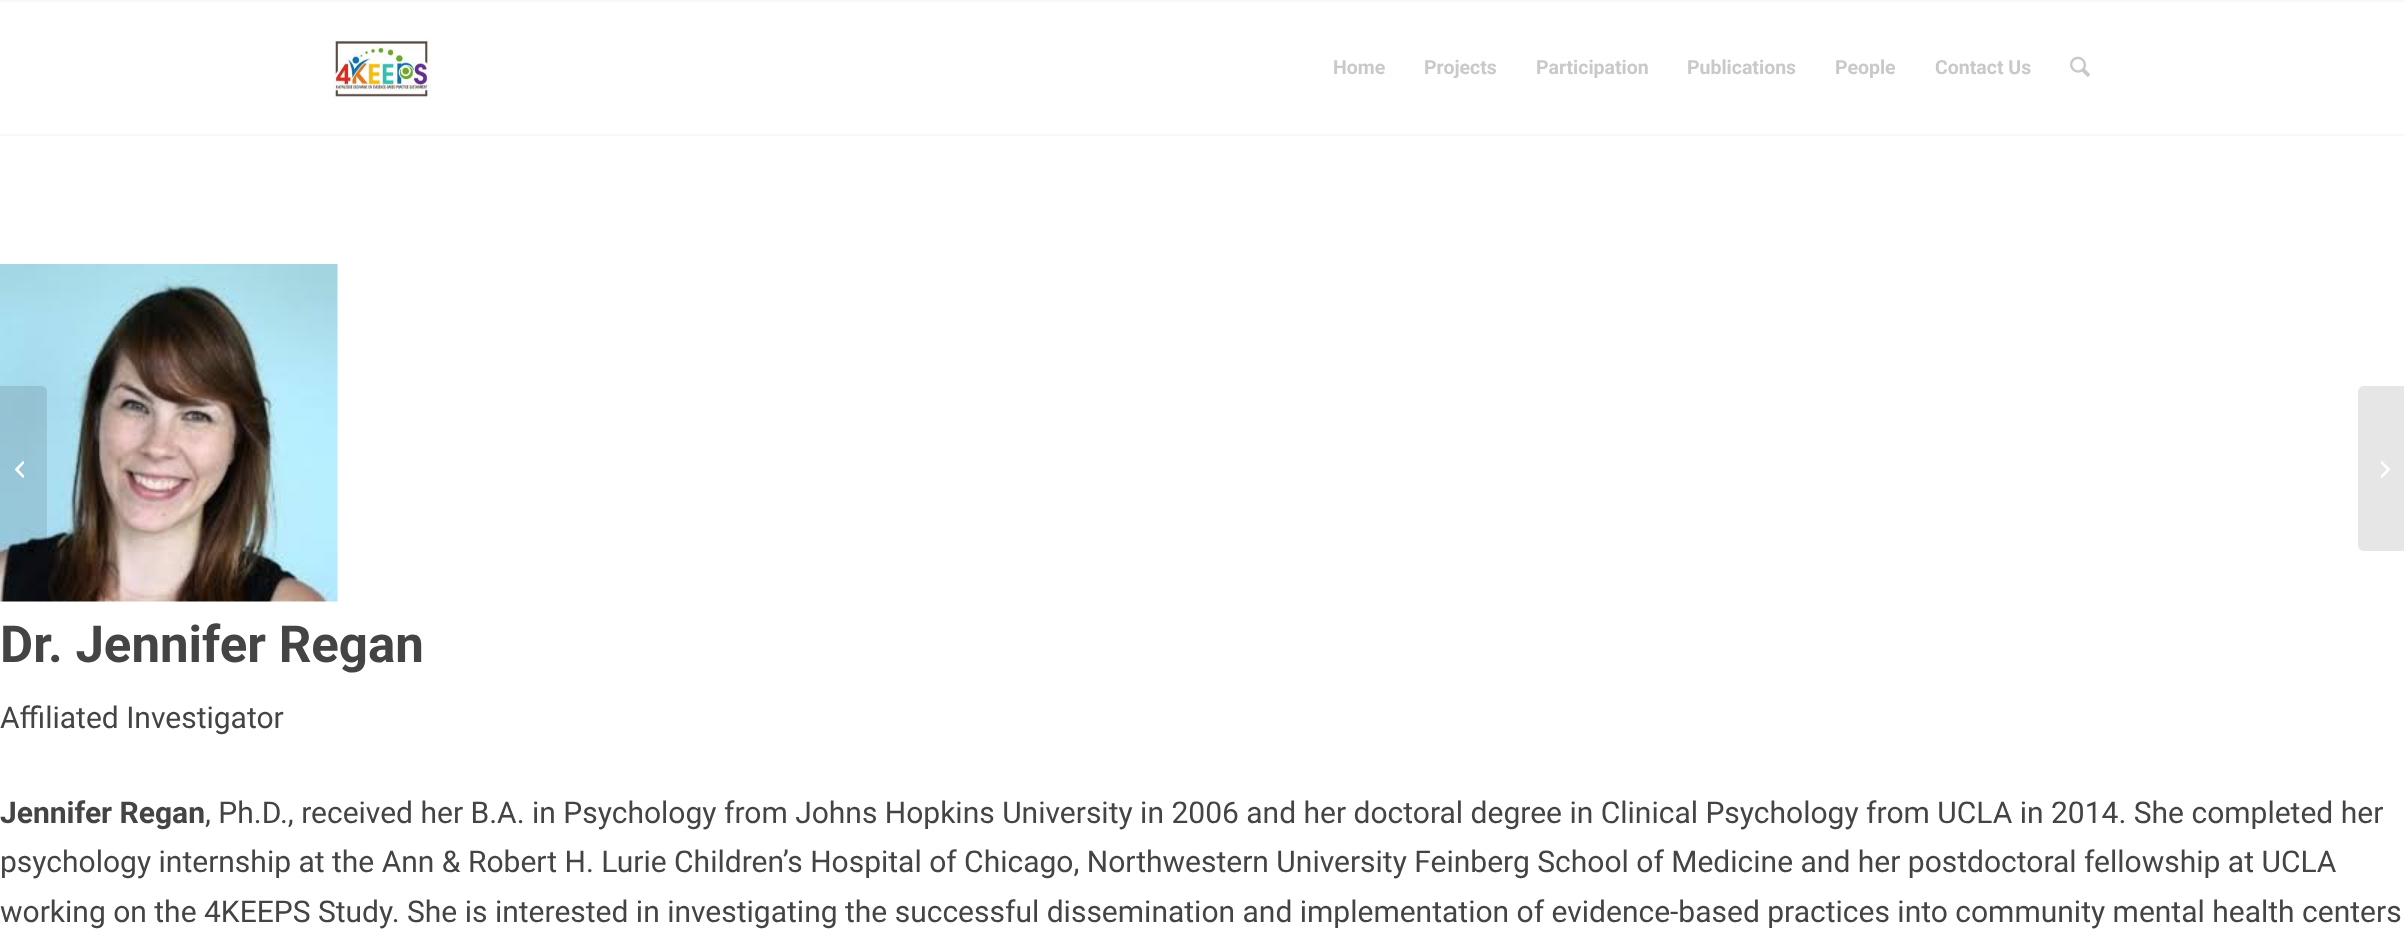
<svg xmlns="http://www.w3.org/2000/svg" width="2404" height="935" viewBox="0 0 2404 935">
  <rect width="100%" height="100%" fill="#fff"/>
  <path d="M0 0h2404v2H0z" fill="#f8f8f8"/>
  <path d="M0 134h2404v2H0z" fill="#f8f8f8"/>
  <image x="333" y="39" width="99" height="60" href="img/1.png"/>
  <image x="2070" y="56" width="20" height="21" href="img/2.png"/>
  <image x="0" y="264" width="338" height="338" href="img/5.png"/>
  <path d="M0 386H41C44.5 386 47 388.5 47 392V545C47 548.5 44.5 551 41 551H0Z" fill="#0000001a"/>
  <image x="15" y="461" width="9" height="17" href="img/3.png"/>
  <path d="M2364 386H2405V551H2364C2360.5 551 2358 548.5 2358 545V392C2358 388.5 2360.5 386 2364 386Z" fill="#e6e6e6"/>
  <image x="2381" y="461" width="9" height="17" href="img/4.png"/>
  <g font-family="Roboto" font-size="19.5" font-weight="bold" fill="#c9c9c9">
    <text x="1333" y="74">Home</text>
    <text x="1424" y="74">Projects</text>
    <text x="1536" y="74">Participation</text>
    <text x="1687" y="74">Publications</text>
    <text x="1835" y="74">People</text>
    <text x="1935" y="74">Contact Us</text>
  </g>
  <text x="0" y="662" font-family="Roboto" font-size="51" font-weight="bold" fill="#444">Dr. Jennifer Regan</text>
  <text x="0" y="728" font-family="Roboto" font-size="30" fill="#444">Affiliated Investigator</text>
  <text x="0" y="823" font-family="Roboto" font-size="30" font-weight="bold" fill="#444">Jennifer Regan</text>
  <g font-family="Roboto" font-size="30" fill="#444">
    <text x="205" y="823">, Ph.D., received her B.A. in Psychology from Johns Hopkins University in 2006 and her doctoral degree in Clinical Psychology from UCLA in 2014. She completed her</text>
    <text x="0" y="872">psychology internship at the Ann &amp; Robert H. Lurie Children’s Hospital of Chicago, Northwestern University Feinberg School of Medicine and her postdoctoral fellowship at UCLA</text>
    <text x="0" y="922">working on the 4KEEPS Study. She is interested in investigating the successful dissemination and implementation of evidence-based practices into community mental health centers</text>
  </g>
</svg>
